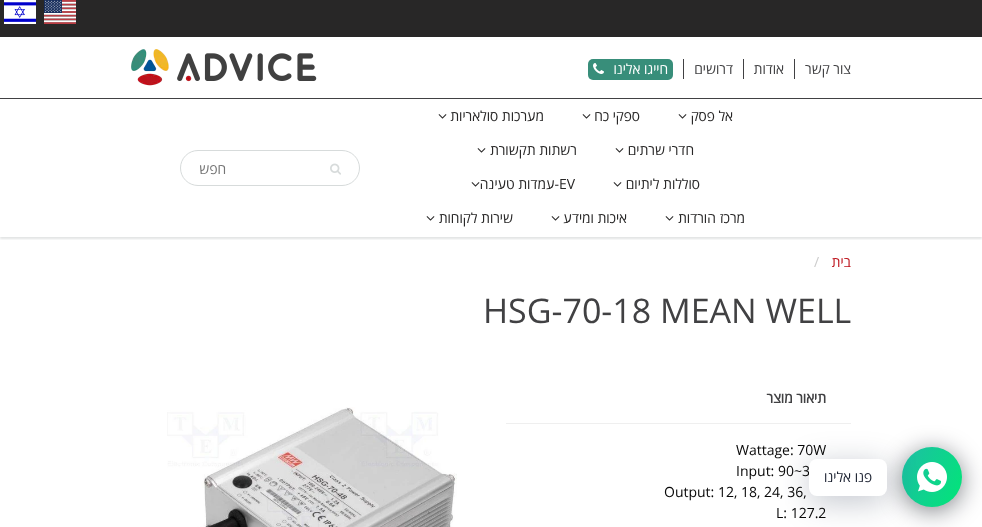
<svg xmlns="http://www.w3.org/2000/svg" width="982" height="527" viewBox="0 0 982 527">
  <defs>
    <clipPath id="clip1"><path d="M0 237h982v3H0z"/></clipPath>
    <linearGradient id="g1" gradientUnits="userSpaceOnUse" x1="896" y1="460" x2="968" y2="494"><stop offset="0" stop-color="#1ebea5"/><stop offset="1" stop-color="#01e677"/></linearGradient>
  </defs>
  <rect width="100%" height="100%" fill="#fff"/>
  <path d="M0 0h982v37H0z" fill="#282727"/>
  <image x="44" y="0" width="32" height="24" href="img/1.png"/>
  <image x="4" y="0" width="32" height="24" href="img/2.png"/>
  <path d="M794 59h1v20H794z" fill="#414143"/>
  <path d="M743 59h1v20H743z" fill="#414143"/>
  <path d="M683 59h1v20H683z" fill="#414143"/>
  <rect x="588" y="59" width="85" height="21" rx="5" fill="#388e7a"/>
  <image x="593" y="63" width="11" height="11" href="img/3.png"/>
  <image x="131" y="49" width="186" height="37" href="img/4.png"/>
  <g clip-path="url(#clip1)">
    <path d="M0 100h982v139H0z" fill="#0b191c1f" filter="blur(1px)"/>
  </g>
  <path d="M0 98h982v1H0z" fill="#414143"/>
  <image x="678" y="114" width="9" height="5" href="img/5.png"/>
  <image x="582" y="114" width="9" height="5" href="img/5.png"/>
  <image x="438" y="114" width="9" height="5" href="img/5.png"/>
  <image x="615" y="148" width="9" height="5" href="img/5.png"/>
  <image x="477" y="148" width="9" height="5" href="img/5.png"/>
  <image x="613" y="182" width="9" height="5" href="img/5.png"/>
  <image x="471" y="182" width="9" height="5" href="img/5.png"/>
  <image x="665" y="216" width="9" height="5" href="img/5.png"/>
  <image x="551" y="216" width="9" height="5" href="img/5.png"/>
  <image x="426" y="216" width="9" height="5" href="img/5.png"/>
  <rect x="180.5" y="150.5" width="179" height="35" rx="17.5" fill="none" stroke="#d7dbdb"/>
  <image x="330" y="163" width="11" height="12" href="img/6.png"/>
  <path d="M506 423h345v1H506z" fill="#efefef"/>
  <image x="167" y="407" width="290" height="120" href="img/7.png"/>
  <rect x="902" y="451" width="60" height="60" rx="30" fill="#02061080" filter="blur(12px)"/>
  <circle cx="932" cy="477" r="30" fill="url(#g1)"/>
  <rect x="809" y="465" width="78" height="37" rx="8" fill="#00122e3d" filter="blur(16px)"/>
  <image x="917" y="462" width="30" height="30" href="img/8.png"/>
  <g font-family="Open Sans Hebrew" font-size="14" direction="rtl" fill="#414143">
    <text x="851" y="74">צור קשר</text>
    <text x="784" y="74">אודות</text>
    <text x="733" y="74">דרושים</text>
  </g>
  <text x="668" y="74" font-family="Open Sans Hebrew" font-size="14" direction="rtl" fill="#fff">חייגו אלינו</text>
  <g font-family="Open Sans Hebrew" font-size="14" direction="rtl" fill="#282727">
    <text x="733" y="121">אל פסק</text>
    <text x="640" y="121">ספקי כח</text>
    <text x="544" y="121">מערכות סולאריות</text>
    <text x="694" y="155">חדרי שרתים</text>
    <text x="577" y="155">רשתות תקשורת</text>
    <text x="700" y="189">סוללות ליתיום</text>
  </g>
  <text x="559" y="189" font-family="Open Sans Hebrew" font-size="14" fill="#282727">EV</text>
  <g font-family="Open Sans Hebrew" font-size="14" direction="rtl" fill="#282727">
    <text x="559" y="189">-עמדות טעינה</text>
    <text x="745" y="223">מרכז הורדות</text>
    <text x="627" y="223">איכות ומידע</text>
    <text x="513" y="223">שירות לקוחות</text>
  </g>
  <text x="226" y="174" font-family="Open Sans Hebrew" font-size="14" direction="rtl" fill="#757575">חפש</text>
  <text x="851" y="267" font-family="Open Sans Hebrew" font-size="14" direction="rtl" fill="#bd131c">בית</text>
  <text x="814" y="267" font-family="Open Sans Hebrew" font-size="14" fill="#ccc">/</text>
  <text x="483" y="323" font-family="Open Sans Hebrew" font-size="34" fill="#414143">HSG-70-18 MEAN WELL</text>
  <text x="826" y="403" font-family="Open Sans Hebrew" font-size="14" font-weight="bold" direction="rtl" fill="#414143">תיאור מוצר</text>
  <g font-family="Open Sans Hebrew" font-size="14" fill="#070707">
    <text x="736" y="455">Wattage: 70W</text>
    <text x="736" y="476">Input: 90~3</text>
    <text x="664" y="497">Output: 12, 18, 24, 36,</text>
    <text x="776" y="518">L: 127.2</text>
  </g>
  <rect x="809" y="459" width="78" height="37" rx="8" fill="#fff"/>
  <text x="872" y="482" font-family="Open Sans Hebrew" font-size="14" direction="rtl" fill="#1e2433">פנו אלינו</text>
</svg>
